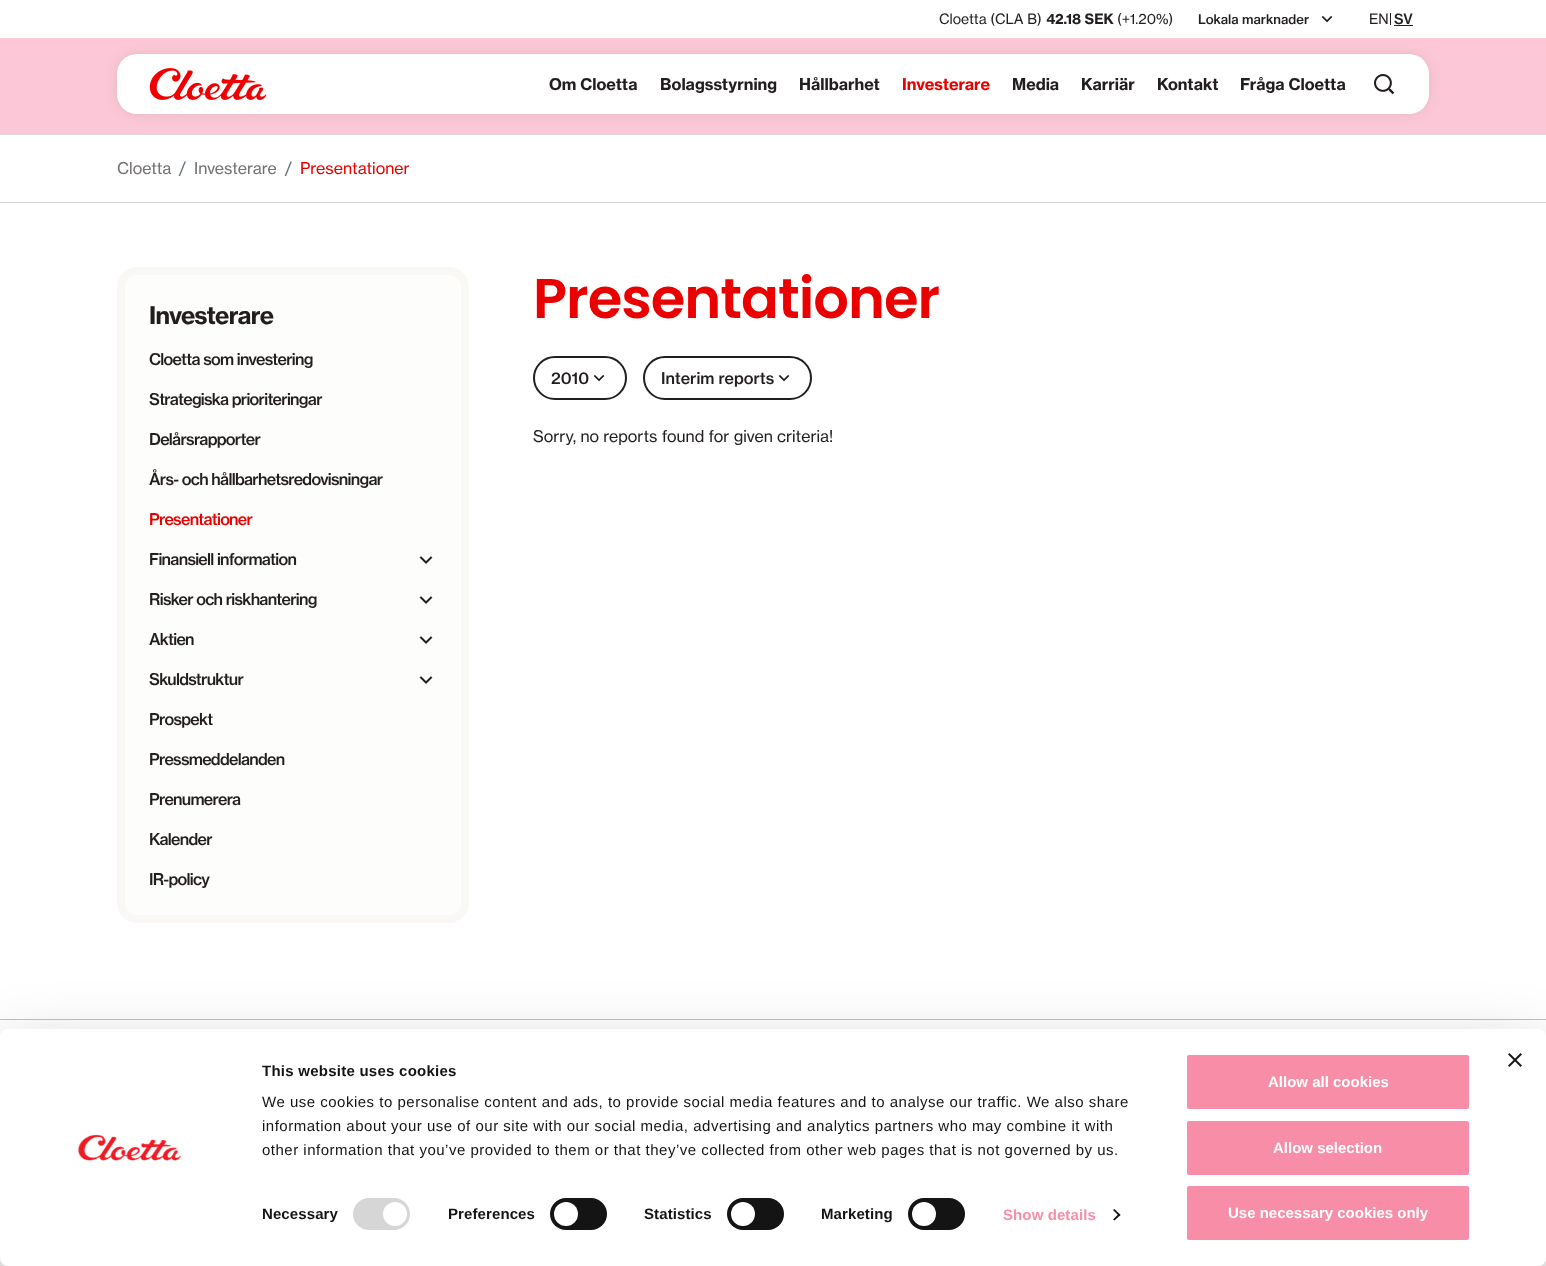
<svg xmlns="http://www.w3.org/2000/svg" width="1546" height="1266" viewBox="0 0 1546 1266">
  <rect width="100%" height="100%" fill="#fff"/>
  <image x="1321" y="16" width="12" height="7" href="img/1.png"/>
  <path d="M1390 13h1v12H1390z" fill="#231e1e"/>
  <path d="M1394 25h19v1H1394z" fill="#231e1e"/>
  <path d="M0 38h1546v96H0z" fill="#fcc8d7"/>
  <rect x="117" y="54" width="1312" height="60" rx="20" fill="#231e1e1a" filter="blur(6px)"/>
  <rect x="117" y="54" width="1312" height="60" rx="20" fill="#fff"/>
  <image x="149" y="68" width="118" height="32" href="img/2.png"/>
  <image x="1374" y="74" width="21" height="21" href="img/3.png"/>
  <path d="M0 134h1546v1H0z" fill="#d8d8d8"/>
  <path d="M0 202h1546v1H0z" fill="#d8d8d8"/>
  <rect x="121" y="271" width="344" height="648" rx="16" fill="#fdfdfc" stroke="#f9f8f5" stroke-width="8"/>
  <image x="419" y="556" width="14" height="8" href="img/4.png"/>
  <image x="419" y="596" width="14" height="8" href="img/4.png"/>
  <image x="419" y="636" width="14" height="8" href="img/4.png"/>
  <image x="419" y="676" width="14" height="8" href="img/4.png"/>
  <rect x="534" y="357" width="92" height="42" rx="21" fill="none" stroke="#231e1e" stroke-width="2"/>
  <image x="593" y="375" width="12" height="7" href="img/1.png"/>
  <rect x="644" y="357" width="167" height="42" rx="21" fill="none" stroke="#231e1e" stroke-width="2"/>
  <image x="778" y="375" width="12" height="7" href="img/1.png"/>
  <path d="M0 1019h1546v1H0z" fill="#c0c0bf"/>
  <rect y="1059" width="1546" height="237" rx="8" fill="#0000004d" filter="blur(35px)"/>
  <rect y="1029" width="1546" height="237" rx="8" fill="#fff"/>
  <image x="1508" y="1053" width="14" height="14" href="img/5.png"/>
  <image x="78" y="1134" width="103" height="27" href="img/6.png"/>
  <rect x="353" y="1198" width="57" height="32" rx="16" fill="#d6d6d6"/>
  <circle cx="395" cy="1214" r="12" fill="#fff"/>
  <rect x="550" y="1198" width="57" height="32" rx="16" fill="#141414"/>
  <circle cx="566" cy="1214" r="12" fill="#fff"/>
  <rect x="727" y="1198" width="57" height="32" rx="16" fill="#141414"/>
  <circle cx="743" cy="1214" r="12" fill="#fff"/>
  <rect x="908" y="1198" width="57" height="32" rx="16" fill="#141414"/>
  <circle cx="924" cy="1214" r="12" fill="#fff"/>
  <path d="M1114.5 1209L1120.5 1215L1119 1216L1113 1210Z" fill="#141414"/>
  <path d="M1119 1213.5L1120.5 1215L1114.5 1220.5L1113 1219.5Z" fill="#141414"/>
  <rect x="1186" y="1054" width="284" height="56" rx="3" fill="#f78da7" stroke="#fff" stroke-width="2"/>
  <rect x="1186" y="1120" width="284" height="56" rx="3" fill="#f78da7" stroke="#fff" stroke-width="2"/>
  <rect x="1186" y="1185" width="284" height="56" rx="3" fill="#f78da7" stroke="#fff" stroke-width="2"/>
  <text x="939" y="24" font-family="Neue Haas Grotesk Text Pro" font-size="14" fill="#231e1e">Cloetta (CLA B)</text>
  <text x="1046" y="24" font-family="Neue Haas Grotesk Text Pro" font-size="14" font-weight="bold" fill="#231e1e">42.18 SEK</text>
  <text x="1117" y="24" font-family="Neue Haas Grotesk Text Pro" font-size="14" fill="#231e1e">(+1.20%)</text>
  <text x="1198" y="24" font-family="Neue Haas Grotesk Text Pro" font-size="13" font-weight="500" fill="#231e1e">Lokala marknader</text>
  <text x="1369" y="24" font-family="Neue Haas Grotesk Text Pro" font-size="14" fill="#231e1e">EN</text>
  <text x="1394" y="24" font-family="Neue Haas Grotesk Text Pro" font-size="14" font-weight="500" fill="#231e1e">SV</text>
  <g font-family="Neue Haas Grotesk Text Pro" font-size="16" font-weight="bold" fill="#231e1e">
    <text x="549" y="90">Om Cloetta</text>
    <text x="660" y="90">Bolagsstyrning</text>
    <text x="799" y="90">Hållbarhet</text>
  </g>
  <text x="902" y="90" font-family="Neue Haas Grotesk Text Pro" font-size="16" font-weight="bold" fill="#eb0000">Investerare</text>
  <g font-family="Neue Haas Grotesk Text Pro" font-size="16" font-weight="bold" fill="#231e1e">
    <text x="1012" y="90">Media</text>
    <text x="1081" y="90">Karriär</text>
    <text x="1157" y="90">Kontakt</text>
    <text x="1240" y="90">Fråga Cloetta</text>
  </g>
  <text x="117" y="174" font-family="Neue Haas Grotesk Text Pro" font-size="16" fill="#74716f">Cloetta</text>
  <text x="179" y="174" font-family="Neue Haas Grotesk Text Pro" font-size="16" fill="#6c757d">/</text>
  <text x="194" y="174" font-family="Neue Haas Grotesk Text Pro" font-size="16" fill="#74716f">Investerare</text>
  <text x="285" y="174" font-family="Neue Haas Grotesk Text Pro" font-size="16" fill="#6c757d">/</text>
  <text x="300" y="174" font-family="Neue Haas Grotesk Text Pro" font-size="16" fill="#eb0000">Presentationer</text>
  <text x="149" y="324" font-family="Neue Haas Grotesk Text Pro" font-size="24" font-weight="bold" letter-spacing="-0.7" fill="#231e1e">Investerare</text>
  <g font-family="Neue Haas Grotesk Text Pro" font-size="16" font-weight="500" letter-spacing="-0.7" fill="#231e1e">
    <text x="149" y="365">Cloetta som investering</text>
    <text x="149" y="405">Strategiska prioriteringar</text>
    <text x="149" y="445">Delårsrapporter</text>
    <text x="149" y="485">Års- och hållbarhetsredovisningar</text>
  </g>
  <text x="149" y="525" font-family="Neue Haas Grotesk Text Pro" font-size="16" font-weight="500" letter-spacing="-0.7" fill="#eb0000">Presentationer</text>
  <g font-family="Neue Haas Grotesk Text Pro" font-size="16" font-weight="500" letter-spacing="-0.7" fill="#231e1e">
    <text x="149" y="565">Finansiell information</text>
    <text x="149" y="605">Risker och riskhantering</text>
    <text x="149" y="645">Aktien</text>
    <text x="149" y="685">Skuldstruktur</text>
    <text x="149" y="725">Prospekt</text>
    <text x="149" y="765">Pressmeddelanden</text>
    <text x="149" y="805">Prenumerera</text>
    <text x="149" y="845">Kalender</text>
    <text x="149" y="885">IR-policy</text>
  </g>
  <text x="533" y="318" font-family="Poppins" font-size="56" font-weight="600" letter-spacing="-1" fill="#eb0000">Presentationer</text>
  <g font-family="Neue Haas Grotesk Text Pro" font-size="16" font-weight="500" fill="#231e1e">
    <text x="551" y="384">2010</text>
    <text x="661" y="384">Interim reports</text>
  </g>
  <text x="533" y="442" font-family="Neue Haas Grotesk Text Pro" font-size="16" fill="#231e1e">Sorry, no reports found for given criteria!</text>
  <text x="262" y="1076" font-family="Liberation Sans" font-size="15" font-weight="bold" letter-spacing="0.25" fill="#141414">This website uses cookies</text>
  <g font-family="Liberation Sans" font-size="15" letter-spacing="0.5" fill="#141414">
    <text x="262" y="1107">We use cookies to personalise content and ads, to provide social media features and to analyse our traffic. We also share</text>
    <text x="262" y="1131">information about your use of our site with our social media, advertising and analytics partners who may combine it with</text>
    <text x="262" y="1155">other information that you’ve provided to them or that they’ve collected from other web pages that is not governed by us.</text>
  </g>
  <g font-family="Liberation Sans" font-size="15" font-weight="bold" letter-spacing="0.1" fill="#141414">
    <text x="262" y="1219">Necessary</text>
    <text x="448" y="1219">Preferences</text>
    <text x="644" y="1219">Statistics</text>
    <text x="821" y="1219">Marketing</text>
  </g>
  <text x="1003" y="1220" font-family="Liberation Sans" font-size="15" font-weight="bold" letter-spacing="0.1" fill="#f78da7">Show details</text>
  <g font-family="Liberation Sans" font-size="15" font-weight="bold" fill="#fff">
    <text x="1268" y="1087">Allow all cookies</text>
    <text x="1273" y="1153">Allow selection</text>
    <text x="1228" y="1218">Use necessary cookies only</text>
  </g>
</svg>
